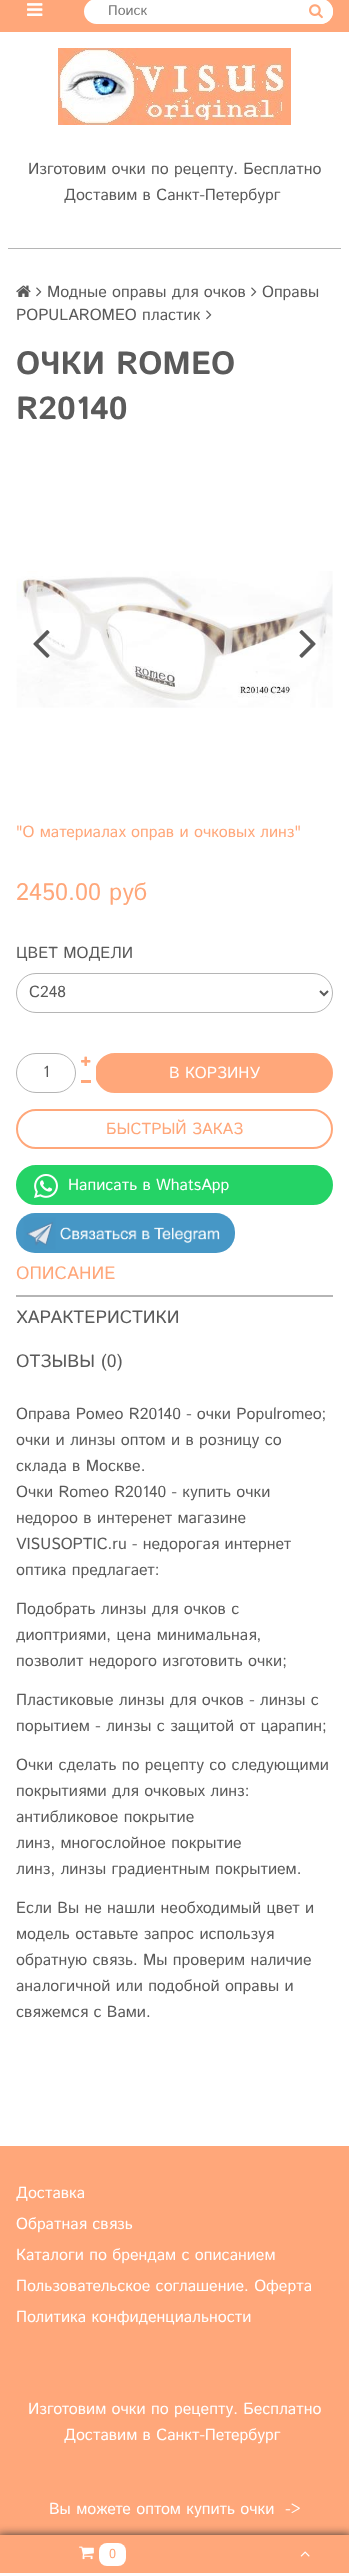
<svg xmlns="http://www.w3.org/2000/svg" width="349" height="2573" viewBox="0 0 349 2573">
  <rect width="100%" height="100%" fill="#ffa77a"/>
  <path d="M0 32h349v2114H0z" fill="#fff"/>
  <image x="27" y="3" width="16" height="13" href="img/1.png"/>
  <rect x="84" y="-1" width="249" height="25" rx="12.5" fill="#fff"/>
  <path d="M298-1H320.5C327.5-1 333 4.5 333 11.5C333 18.5 327.5 24 320.5 24H298Z" fill="#fff"/>
  <image x="309" y="4" width="14" height="15" href="img/2.png"/>
  <image x="58" y="48" width="233" height="77" href="img/3.png"/>
  <path d="M8 248h333v1H8z" fill="#b5b5b5"/>
  <image x="16" y="285" width="15" height="12" href="img/4.png"/>
  <image x="36" y="287" width="6" height="10" href="img/5.png"/>
  <image x="251" y="287" width="6" height="10" href="img/5.png"/>
  <image x="206" y="310" width="6" height="10" href="img/5.png"/>
  <image x="16" y="571" width="317" height="137" href="img/6.png"/>
  <image x="33" y="630" width="17" height="28" href="img/7.png"/>
  <image x="299" y="630" width="17" height="28" href="img/8.png"/>
  <rect x="16.5" y="973.5" width="316" height="39" rx="19.5" fill="none" stroke="#b5b5b5"/>
  <path d="M320 991L324 995L328 991" fill="none" stroke="#5a5a5a" stroke-width="2"/>
  <image x="81" y="1056" width="10" height="10" href="img/9.png"/>
  <rect x="16.5" y="1053.5" width="59" height="39" rx="19.5" fill="none" stroke="#b5b5b5"/>
  <rect x="96" y="1054" width="236" height="38" rx="19" fill="#ffa77a" stroke="#ffa77a" stroke-width="2"/>
  <path d="M95 1067h1v12H95z" fill="#fff"/>
  <path d="M81 1080h10v3H81z" fill="#ffa77a"/>
  <rect x="17" y="1110" width="315" height="38" rx="19" fill="none" stroke="#ffa77a" stroke-width="2"/>
  <rect x="17" y="1166" width="315" height="38" rx="19" fill="#25d366" stroke="#25d366" stroke-width="2"/>
  <image x="34" y="1174" width="24" height="24" href="img/10.png"/>
  <image x="16" y="1213" width="219" height="40" href="img/11.png"/>
  <path d="M16 1295h317v2H16z" fill="#b5b5b5"/>
  <path d="M-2 2535h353v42H-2z" fill="#333" filter="blur(5px)"/>
  <path d="M0 2535h349v38H0z" fill="#ffa77a"/>
  <image x="79" y="2546" width="15" height="14" href="img/12.png"/>
  <rect x="99" y="2543" width="27" height="23" rx="8" fill="#fff"/>
  <image x="300" y="2551" width="10" height="6" href="img/13.png"/>
  <text x="108" y="15" font-family="Istok Web" font-size="14" fill="#757575">Поиск</text>
  <g font-family="Istok Web" font-size="16" fill="#5a5a5a">
    <text x="28" y="174">Изготовим очки по рецепту. Бесплатно</text>
    <text x="64" y="200">Доставим в Санкт-Петербург</text>
    <text x="47" y="297">Модные оправы для очков</text>
    <text x="262" y="297">Оправы</text>
    <text x="16" y="320">POPULAROMEO пластик</text>
  </g>
  <g font-family="Istok Web" font-size="32" font-weight="bold" fill="#5a5a5a">
    <text x="16" y="374">OЧКИ ROMEO</text>
    <text x="16" y="419">R20140</text>
  </g>
  <text x="16" y="837" font-family="Istok Web" font-size="16" fill="#ffa77a">"О материалах оправ и очковых линз"</text>
  <text x="16" y="900" font-family="Istok Web" font-size="24" fill="#ffa77a">2450.00 руб</text>
  <g font-family="Istok Web" font-size="16" fill="#5a5a5a">
    <text x="16" y="958">ЦВЕТ МОДЕЛИ</text>
    <text x="29" y="997">C248</text>
    <text x="43" y="1077">1</text>
  </g>
  <text x="169" y="1078" font-family="Istok Web" font-size="16" fill="#fff">В КОРЗИНУ</text>
  <text x="106" y="1134" font-family="Istok Web" font-size="16" fill="#ffa77a">БЫСТРЫЙ ЗАКАЗ</text>
  <text x="68" y="1190" font-family="Istok Web" font-size="16" fill="#fff">Написать в WhatsApp</text>
  <text x="16" y="1279" font-family="Istok Web" font-size="18" fill="#ffa77a">ОПИСАНИЕ</text>
  <g font-family="Istok Web" font-size="18" fill="#5a5a5a">
    <text x="16" y="1323">ХАРАКТЕРИСТИКИ</text>
    <text x="16" y="1367">ОТЗЫВЫ (0)</text>
  </g>
  <g font-family="Istok Web" font-size="16" fill="#5a5a5a">
    <text x="16" y="1419">Оправа Ромео R20140 - очки Populromeo;</text>
    <text x="16" y="1445">очки и линзы оптом и в розницу со</text>
    <text x="16" y="1471">склада в Москве.</text>
    <text x="16" y="1497">Очки Romeo R20140 - купить очки</text>
    <text x="16" y="1523">недороо в интеренет магазине</text>
    <text x="16" y="1549">VISUSOPTIC.ru - недорогая интернет</text>
    <text x="16" y="1575">оптика предлагает:</text>
    <text x="16" y="1614">Подобрать линзы для очков с</text>
    <text x="16" y="1640">диоптриями, цена минимальная,</text>
    <text x="16" y="1666">позволит недорого изготовить очки;</text>
    <text x="16" y="1705">Пластиковые линзы для очков - линзы с</text>
    <text x="16" y="1731">порытием - линзы с защитой от царапин;</text>
    <text x="16" y="1770">Очки сделать по рецепту со следующими</text>
    <text x="16" y="1796">покрытиями для очковых линз:</text>
    <text x="16" y="1822">антибликовое покрытие</text>
    <text x="16" y="1848">линз, многослойное покрытие</text>
    <text x="16" y="1874">линз, линзы градиентным покрытием.</text>
    <text x="16" y="1913">Если Вы не нашли необходимый цвет и</text>
    <text x="16" y="1939">модель оставьте запрос используя</text>
    <text x="16" y="1965">обратную связь. Мы проверим наличие</text>
    <text x="16" y="1991">аналогичной или подобной оправы и</text>
    <text x="16" y="2017">свяжемся с Вами.</text>
  </g>
  <g font-family="Istok Web" font-size="16" fill="#fff">
    <text x="16" y="2198">Доставка</text>
    <text x="16" y="2229">Обратная связь</text>
    <text x="16" y="2260">Каталоги по брендам с описанием</text>
    <text x="16" y="2291">Пользовательское соглашение. Оферта</text>
    <text x="16" y="2322">Политика конфиденциальности</text>
    <text x="28" y="2414">Изготовим очки по рецепту. Бесплатно</text>
    <text x="64" y="2440">Доставим в Санкт-Петербург</text>
    <text x="49" y="2514" xml:space="preserve">Вы можете оптом купить очки  -&gt;</text>
  </g>
  <text x="109" y="2558" font-family="Istok Web" font-size="13" fill="#ffa77a">0</text>
</svg>
